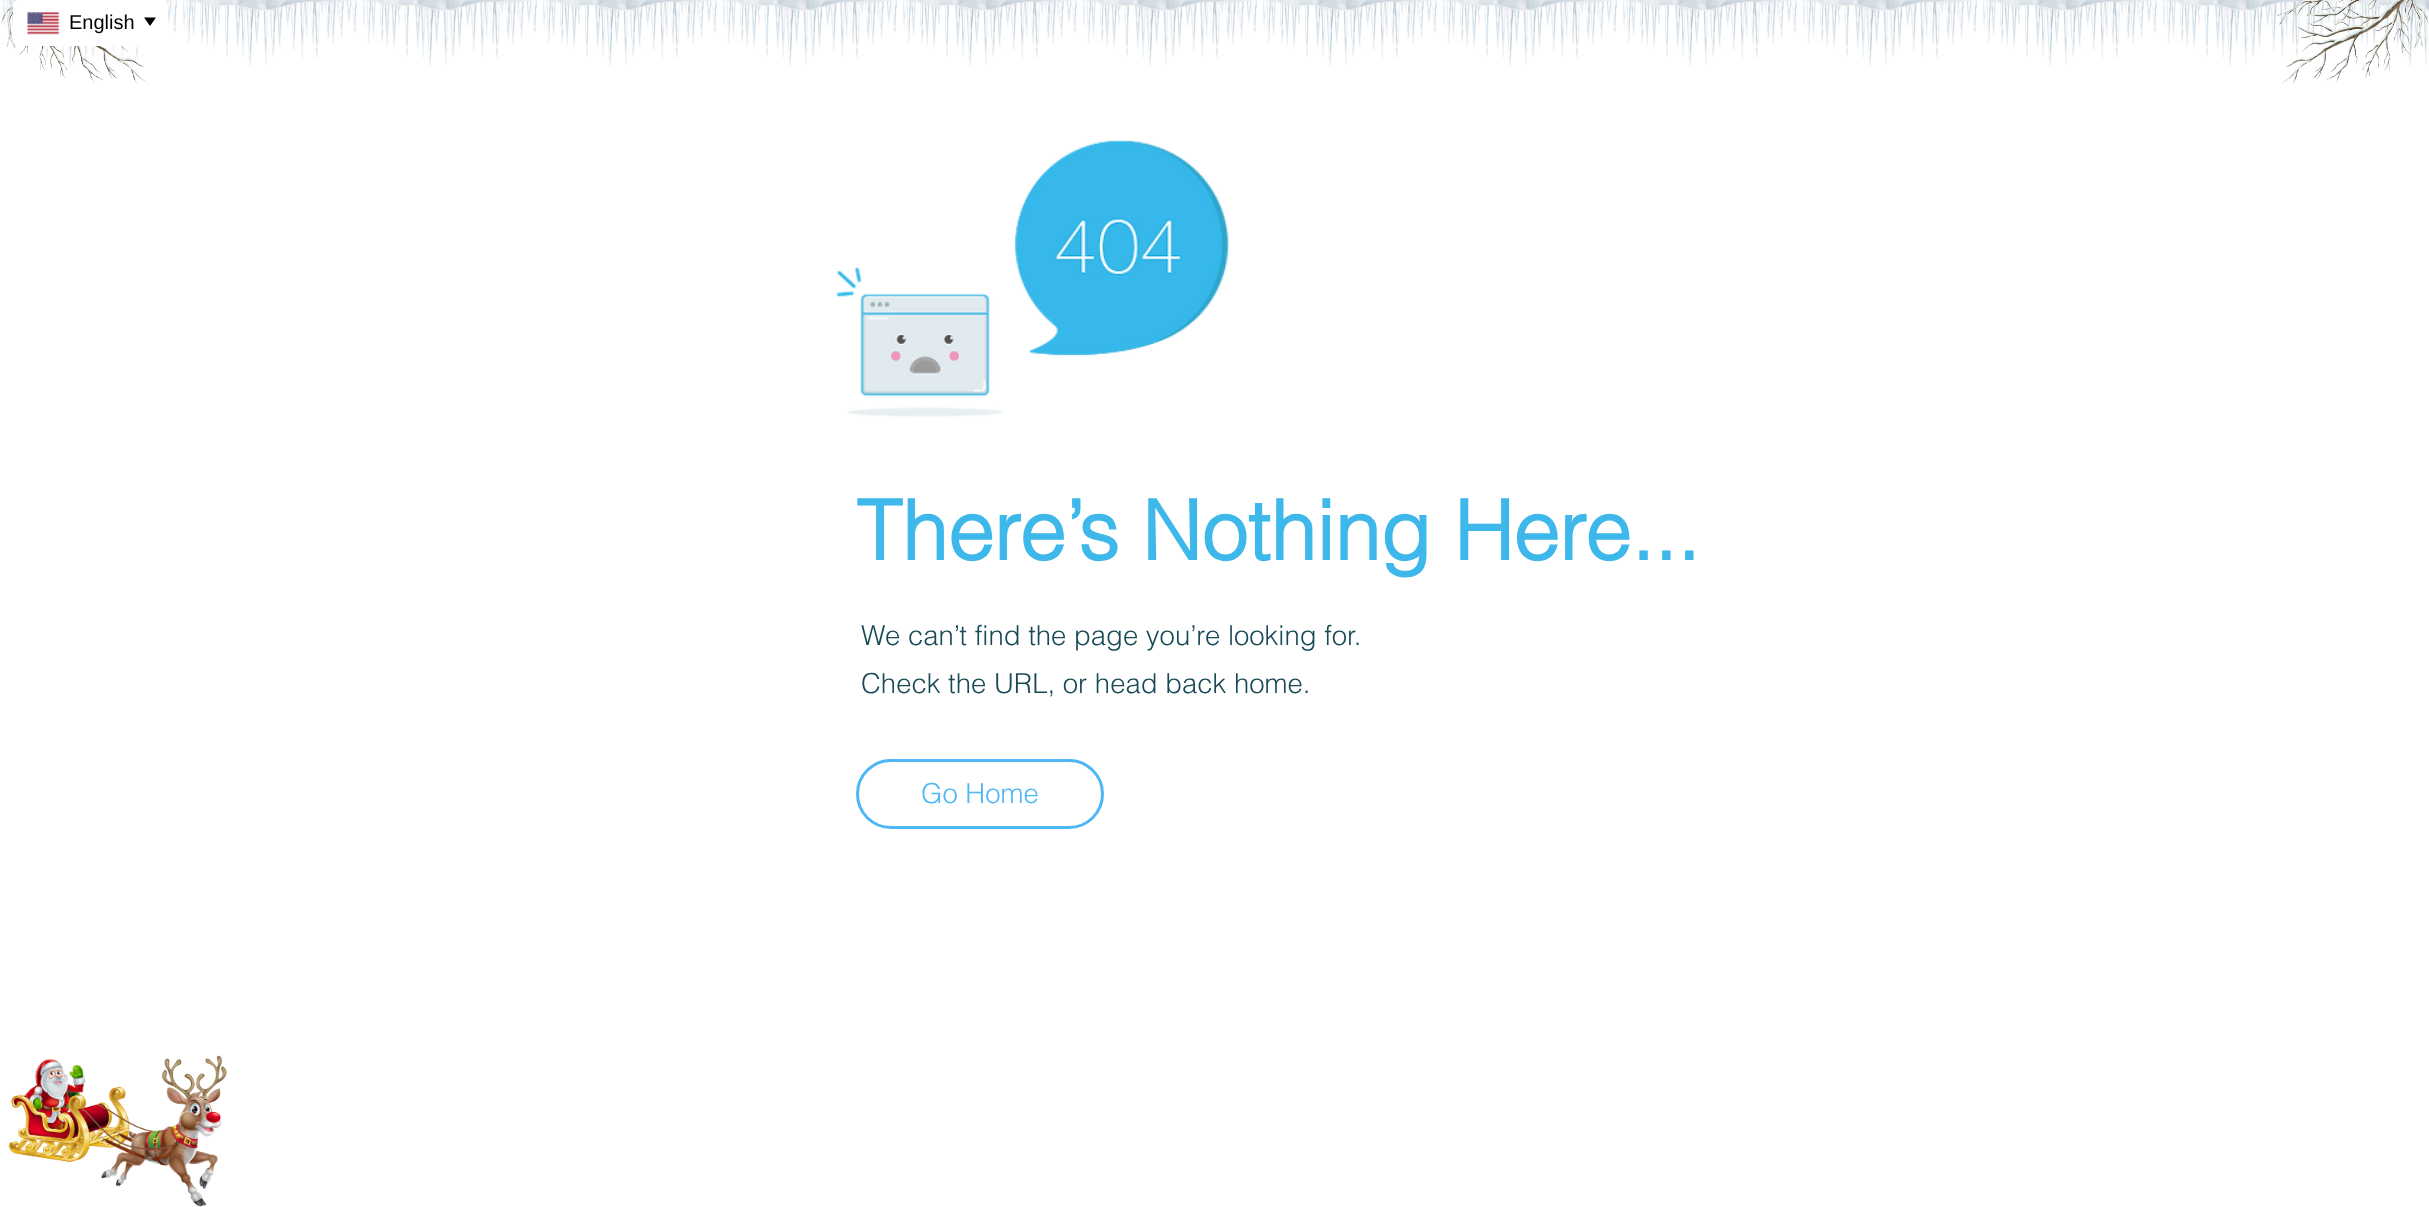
<svg xmlns="http://www.w3.org/2000/svg" width="2429" height="1207" viewBox="0 0 2429 1207">
  <rect width="100%" height="100%" fill="#fff"/>
  <image x="3" y="0" width="2426" height="67" href="img/2.png"/>
  <image x="1" y="0" width="147" height="84" href="img/1.png"/>
  <rect x="13" width="155" height="46" rx="5" fill="#fff"/>
  <image x="27" y="12" width="33" height="23" href="img/3.png"/>
  <path d="M144 17.5H156L150 26Z" fill="#000"/>
  <image x="2276" y="0" width="152" height="84" href="img/4.png"/>
  <image x="836" y="140" width="393" height="277" href="img/5.png"/>
  <rect x="857.5" y="760.5" width="245" height="67" rx="33.5" fill="none" stroke="#4eb7f5" stroke-width="3"/>
  <image x="8" y="1055" width="219" height="152" href="img/6.png"/>
  <text x="69" y="29" font-family="Liberation Sans" font-size="20" fill="#000">English</text>
  <text x="856" y="560" font-family="helvetica" font-size="82.5" font-weight="bold" fill="#3eb8ea">There’s Nothing Here...</text>
  <g font-family="helvetica" font-size="27.5" font-weight="300" fill="#184a56">
    <text x="861" y="645">We can’t find the page you’re looking for.</text>
    <text x="861" y="693">Check the URL, or head back home.</text>
  </g>
  <text x="921" y="803" font-family="helvetica" font-size="27.5" font-weight="300" fill="#4eb7f5">Go Home</text>
</svg>
